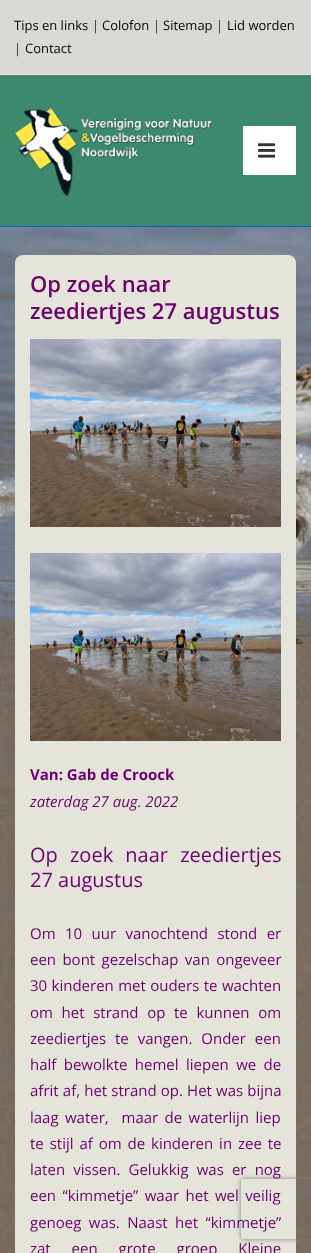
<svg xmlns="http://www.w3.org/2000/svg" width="311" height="1253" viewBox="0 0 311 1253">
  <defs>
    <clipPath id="clip1"><path d="M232 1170H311V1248H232ZM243 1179H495C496 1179 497 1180 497 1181V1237C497 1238 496 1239 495 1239H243C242 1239 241 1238 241 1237V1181C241 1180 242 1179 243 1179Z" clip-rule="evenodd"/></clipPath>
  </defs>
  <rect width="100%" height="100%" fill="#fff"/>
  <image x="0" y="227" width="311" height="1026" href="img/1.png"/>
  <path d="M0 0h311v74H0z" fill="#d9d8d2"/>
  <path d="M0 74h311v1H0z" fill="#eaeaea"/>
  <path d="M0 75h311v151H0z" fill="#3c896d"/>
  <path d="M0 226h311v1H0z" fill="#06c"/>
  <image x="15" y="107" width="198" height="89" href="img/2.png"/>
  <path d="M243 126h53v49H243z" fill="#fff"/>
  <image x="258" y="143" width="18" height="15" href="img/3.png"/>
  <rect x="15" y="255" width="281" height="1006" rx="8" fill="#e4e4db"/>
  <image x="30" y="339" width="251" height="188" href="img/4.png"/>
  <image x="30" y="553" width="251" height="188" href="img/5.png"/>
  <g clip-path="url(#clip1)">
    <rect x="241" y="1179" width="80" height="60" rx="2" fill="#808080" filter="blur(2.5px)"/>
  </g>
  <text x="14" y="30" font-family="Open Sans" font-size="13" fill="#00070e">Tips en links</text>
  <text x="92" y="30" font-family="Open Sans" font-size="13" fill="#333">|</text>
  <text x="102" y="30" font-family="Open Sans" font-size="13" fill="#00070e">Colofon</text>
  <text x="153" y="30" font-family="Open Sans" font-size="13" fill="#333">|</text>
  <text x="163" y="30" font-family="Open Sans" font-size="13" fill="#00070e">Sitemap</text>
  <text x="216" y="30" font-family="Open Sans" font-size="13" fill="#333">|</text>
  <text x="227" y="30" font-family="Open Sans" font-size="13" fill="#00070e">Lid worden</text>
  <text x="14" y="53" font-family="Open Sans" font-size="13" fill="#333">|</text>
  <text x="25" y="53" font-family="Open Sans" font-size="13" fill="#00070e">Contact</text>
  <g font-family="Open Sans" font-size="22" font-weight="600" fill="#6b0369">
    <text x="30" y="292">Op zoek naar</text>
    <text x="30" y="319">zeediertjes 27 augustus</text>
  </g>
  <text x="30" y="780" font-family="Open Sans" font-size="15" font-weight="bold" fill="#6b0369">Van: Gab de Croock</text>
  <text x="30" y="807" font-family="Open Sans" font-size="15" font-style="italic" fill="#6b0369">zaterdag 27 aug. 2022</text>
  <g font-family="Open Sans" font-size="20" fill="#6b0369">
    <text x="30" y="862" word-spacing="7">Op zoek naar zeediertjes</text>
    <text x="30" y="887">27 augustus</text>
  </g>
  <g font-family="Open Sans" font-size="15" fill="#6b0369">
    <text x="30" y="939" word-spacing="5.5">Om 10 uur vanochtend stond er</text>
    <text x="30" y="965" word-spacing="2.5">een bont gezelschap van ongeveer</text>
    <text x="30" y="991" word-spacing="0.5">30 kinderen met ouders te wachten</text>
    <text x="30" y="1018" word-spacing="4.75">om het strand op te kunnen om</text>
    <text x="30" y="1044" word-spacing="5">zeediertjes te vangen. Onder een</text>
    <text x="30" y="1070" word-spacing="3.5">half bewolkte hemel liepen we de</text>
    <text x="30" y="1096" word-spacing="0.25">afrit af, het strand op. Het was bijna</text>
    <text x="30" y="1123" word-spacing="2.5" xml:space="preserve">laag water,  maar de waterlijn liep</text>
    <text x="30" y="1149" word-spacing="2">te stijl af om de kinderen in zee te</text>
    <text x="30" y="1175" word-spacing="4.25">laten vissen. Gelukkig was er nog</text>
    <text x="30" y="1201" word-spacing="2.5">een “kimmetje” waar het wel veilig</text>
    <text x="30" y="1228" word-spacing="3.5">genoeg was. Naast het “kimmetje”</text>
    <text x="30" y="1254" word-spacing="17">zat een grote groep Kleine</text>
  </g>
</svg>
